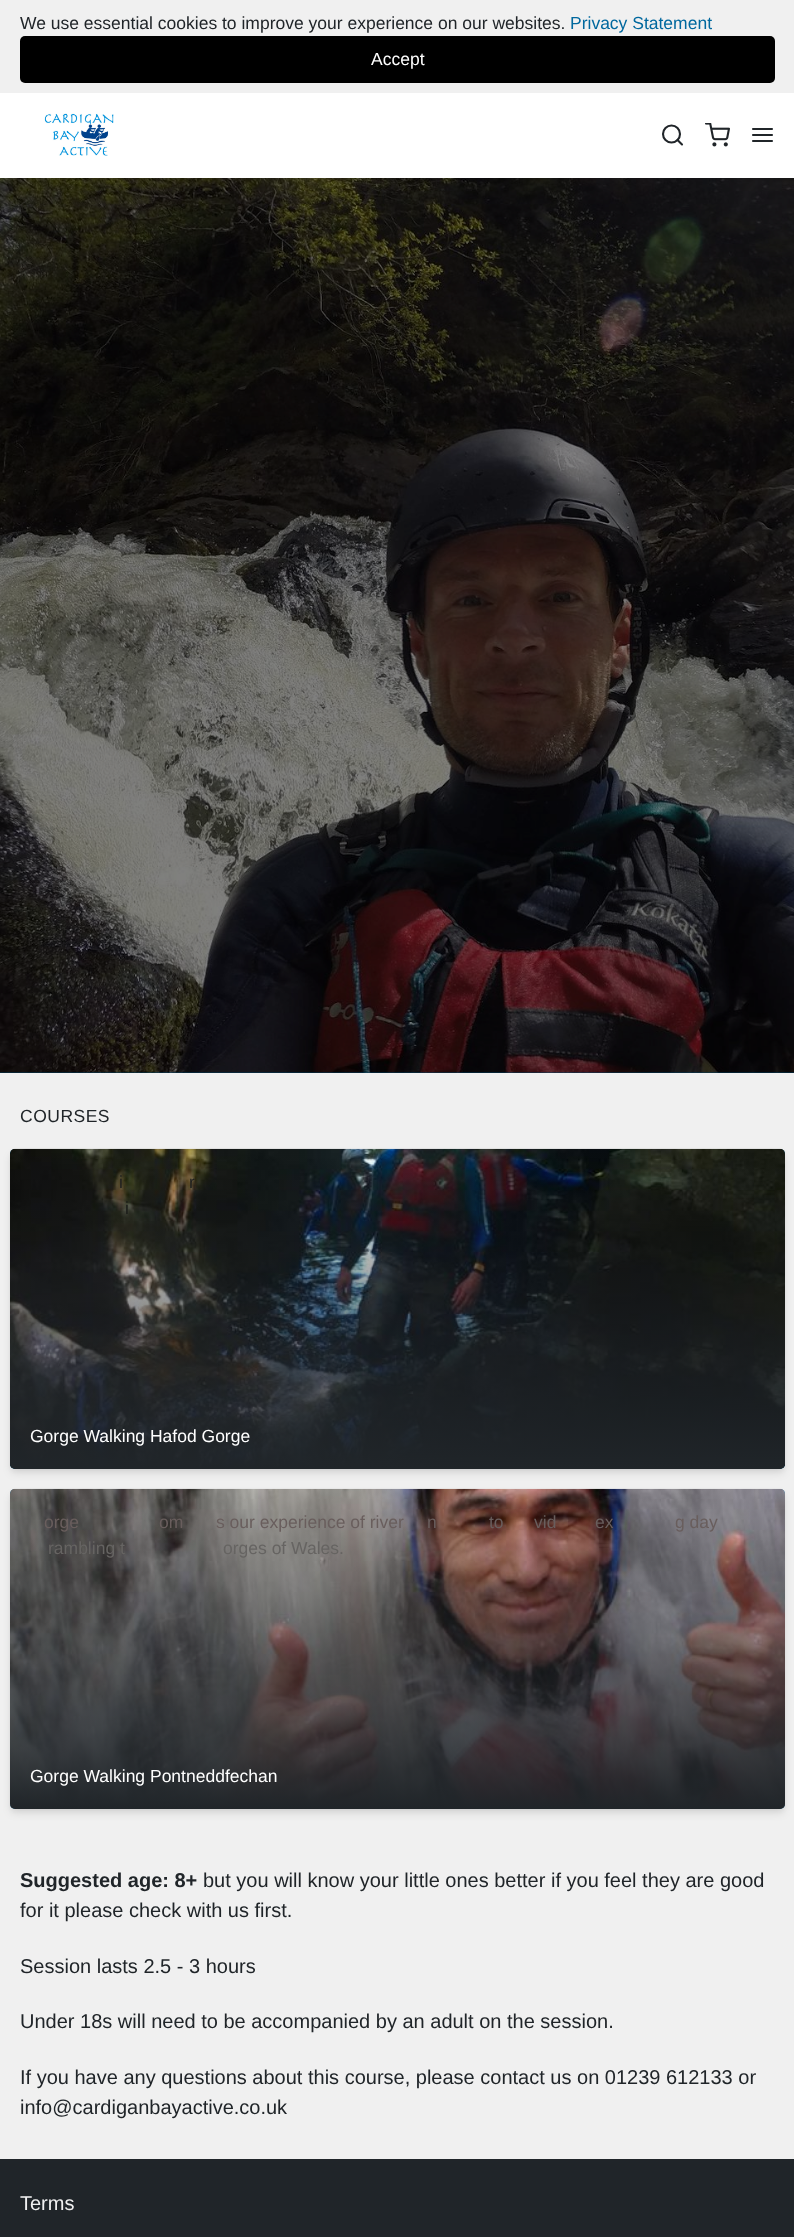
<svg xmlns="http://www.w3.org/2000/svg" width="794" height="2237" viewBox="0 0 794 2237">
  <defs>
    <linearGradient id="g1" gradientUnits="userSpaceOnUse" x1="398" y1="1469" x2="398" y2="1149"><stop offset="0" stop-color="#202529"/><stop offset="1" stop-color="#202529" stop-opacity="0"/></linearGradient>
    <linearGradient id="g2" gradientUnits="userSpaceOnUse" x1="398" y1="1809" x2="398" y2="1489"><stop offset="0" stop-color="#202529"/><stop offset="1" stop-color="#202529" stop-opacity="0"/></linearGradient>
  </defs>
  <rect width="100%" height="100%" fill="#f0f0f0"/>
  <rect x="20" y="36" width="755" height="47" rx="5" fill="#000"/>
  <path d="M0 93h794v85H0z" fill="#fff"/>
  <image x="44" y="113" width="70" height="43" href="img/1.png"/>
  <circle cx="671.5" cy="134" r="8.5" fill="none" stroke="#202529" stroke-width="2.1"/>
  <path d="M682 144.5L677.5 140" fill="none" stroke="#202529" stroke-width="2.1" stroke-linecap="round" stroke-linejoin="round"/>
  <image x="705" y="123" width="25" height="24" href="img/2.png"/>
  <path d="M753 135H772M753 129H772M753 141H772" fill="none" stroke="#202529" stroke-width="2.1" stroke-linecap="round" stroke-linejoin="round"/>
  <path d="M0 1072h794v1H0z" fill="#003d5c"/>
  <image x="0" y="1072" width="750" height="1" href="img/3.png"/>
  <image x="0" y="178" width="794" height="895" href="img/4.png"/>
  <rect x="11" y="1153" width="773" height="317" rx="4" fill="#0000000f" filter="blur(2.5px)"/>
  <rect x="11" y="1155" width="773" height="318" rx="4" fill="#0000001a" filter="blur(4px)"/>
  <rect x="10" y="1149" width="775" height="320" rx="5" fill="#0079b7"/>
  <image x="10" y="1148" width="775" height="321" href="img/5.png"/>
  <rect x="10" y="1149" width="775" height="320" rx="5" fill="url(#g1)"/>
  <rect x="11" y="1493" width="773" height="317" rx="4" fill="#0000000f" filter="blur(2.5px)"/>
  <rect x="11" y="1495" width="773" height="318" rx="4" fill="#0000001a" filter="blur(4px)"/>
  <rect x="10" y="1489" width="775" height="320" rx="5" fill="#0079b7"/>
  <image x="10" y="1488" width="775" height="321" href="img/6.png"/>
  <rect x="10" y="1489" width="775" height="320" rx="5" fill="url(#g2)"/>
  <path d="M0 2159h794v78H0z" fill="#202529"/>
  <text x="20" y="29" font-family="Liberation Sans" font-size="17.5" fill="#202529">We use essential cookies to improve your experience on our websites.</text>
  <text x="570" y="29" font-family="Liberation Sans" font-size="17.5" fill="#00689e">Privacy Statement</text>
  <text x="371" y="65" font-family="Liberation Sans" font-size="17.5" fill="#fff">Accept</text>
  <text x="20" y="1122" font-family="Liberation Sans" font-size="17.5" letter-spacing="0.5" fill="#202529">COURSES</text>
  <g font-family="Liberation Sans" font-size="17.5" fill="#1f201f">
    <text x="119" y="1188">i</text>
    <text x="189" y="1188">r</text>
  </g>
  <text x="125" y="1214" font-family="Liberation Sans" font-size="17.5" fill="#1a1c19">i</text>
  <text x="30" y="1442" font-family="Liberation Sans" font-size="17.5" fill="#fff">Gorge Walking Hafod Gorge</text>
  <g font-family="Liberation Sans" font-size="17.5" fill="#695e5d">
    <text x="44" y="1528">orge</text>
    <text x="159" y="1528">om</text>
    <text x="216" y="1528">s our experience of river</text>
    <text x="427" y="1528">n</text>
    <text x="489" y="1528">to</text>
    <text x="534" y="1528">vid</text>
    <text x="595" y="1528">ex</text>
    <text x="675" y="1528">g day</text>
  </g>
  <g font-family="Liberation Sans" font-size="17.5" fill="#666462">
    <text x="48" y="1554">rambling t</text>
    <text x="223" y="1554">orges of Wales.</text>
  </g>
  <text x="30" y="1782" font-family="Liberation Sans" font-size="17.5" fill="#fff">Gorge Walking Pontneddfechan</text>
  <text x="20" y="1887" font-family="Liberation Sans" font-size="20" font-weight="bold" fill="#202529">Suggested age: 8+</text>
  <g font-family="Liberation Sans" font-size="20" fill="#202529">
    <text x="203" y="1887">but you will know your little ones better if you feel they are good</text>
    <text x="20" y="1917">for it please check with us first.</text>
    <text x="20" y="1973">Session lasts 2.5 - 3 hours</text>
    <text x="20" y="2028">Under 18s will need to be accompanied by an adult on the session.</text>
    <text x="20" y="2084">If you have any questions about this course, please contact us on 01239 612133 or</text>
    <text x="20" y="2114">info@cardiganbayactive.co.uk</text>
  </g>
  <text x="20" y="2210" font-family="Liberation Sans" font-size="20" fill="#f0f0f0">Terms</text>
</svg>
